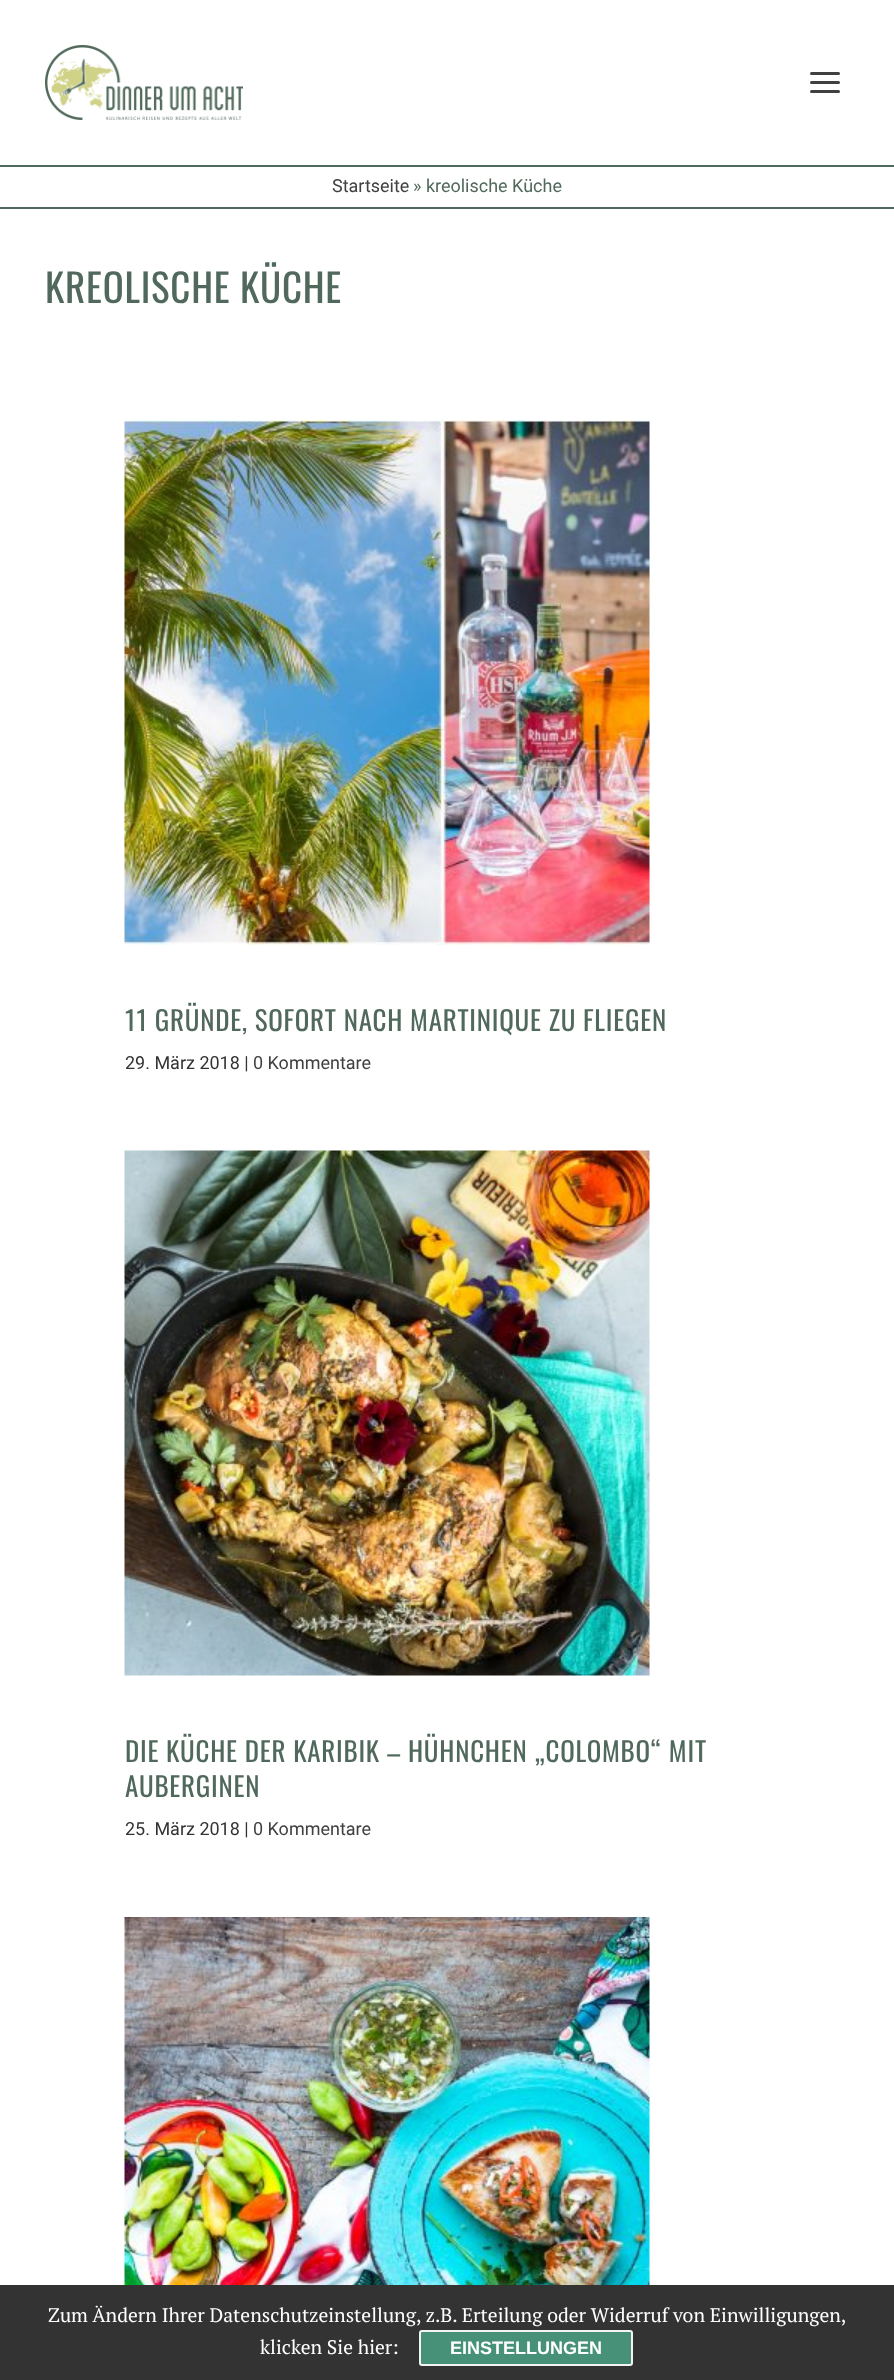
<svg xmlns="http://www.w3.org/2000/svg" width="894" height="2380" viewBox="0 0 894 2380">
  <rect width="100%" height="100%" fill="#fff"/>
  <image x="45" y="45" width="198" height="75" href="img/1.png"/>
  <rect x="810" y="72" width="30" height="3" rx="1.5" fill="#404040"/>
  <rect x="810" y="81" width="30" height="3" rx="1.5" fill="#404040"/>
  <rect x="810" y="90" width="30" height="3" rx="1.5" fill="#404040"/>
  <path d="M0 165h894v2H0z" fill="#51695c"/>
  <path d="M0 207h894v2H0z" fill="#51695c"/>
  <image x="124" y="420" width="526" height="525" href="img/2.png"/>
  <image x="124" y="1150" width="526" height="526" href="img/3.png"/>
  <image x="124" y="1917" width="526" height="368" href="img/4.png"/>
  <path d="M0 2285h894v95H0z" fill="#333"/>
  <rect x="420" y="2331" width="212" height="34" rx="2" fill="#489179" stroke="#f3f3f3" stroke-width="2"/>
  <text x="332" y="192" font-family="Roboto" font-size="18" fill="#404040">Startseite</text>
  <text x="413" y="192" font-family="Roboto" font-size="18" fill="#51695c">» kreolische Küche</text>
  <text x="45" y="303" font-family="Oswald" font-size="39" letter-spacing="0.75" fill="#51695c">KREOLISCHE KÜCHE</text>
  <text x="125" y="1031" font-family="Oswald" font-size="27" letter-spacing="0.75" fill="#51695c">11 GRÜNDE, SOFORT NACH MARTINIQUE ZU FLIEGEN</text>
  <text x="125" y="1069" font-family="Roboto" font-size="18" fill="#333">29. März 2018 |</text>
  <text x="253" y="1069" font-family="Roboto" font-size="18" fill="#404040">0 Kommentare</text>
  <g font-family="Oswald" font-size="27" letter-spacing="0.75" fill="#51695c">
    <text x="125" y="1762">DIE KÜCHE DER KARIBIK – HÜHNCHEN „COLOMBO“ MIT</text>
    <text x="125" y="1797">AUBERGINEN</text>
  </g>
  <text x="125" y="1835" font-family="Roboto" font-size="18" fill="#333">25. März 2018 |</text>
  <text x="253" y="1835" font-family="Roboto" font-size="18" fill="#404040">0 Kommentare</text>
  <g font-family="PT Serif" font-size="19.5" fill="#fff">
    <text x="48" y="2322">Zum Ändern Ihrer Datenschutzeinstellung, z.B. Erteilung oder Widerruf von Einwilligungen,</text>
    <text x="260" y="2354">klicken Sie hier:</text>
  </g>
  <text x="450" y="2354" font-family="Liberation Sans" font-size="18" font-weight="bold" fill="#fff">EINSTELLUNGEN</text>
</svg>
